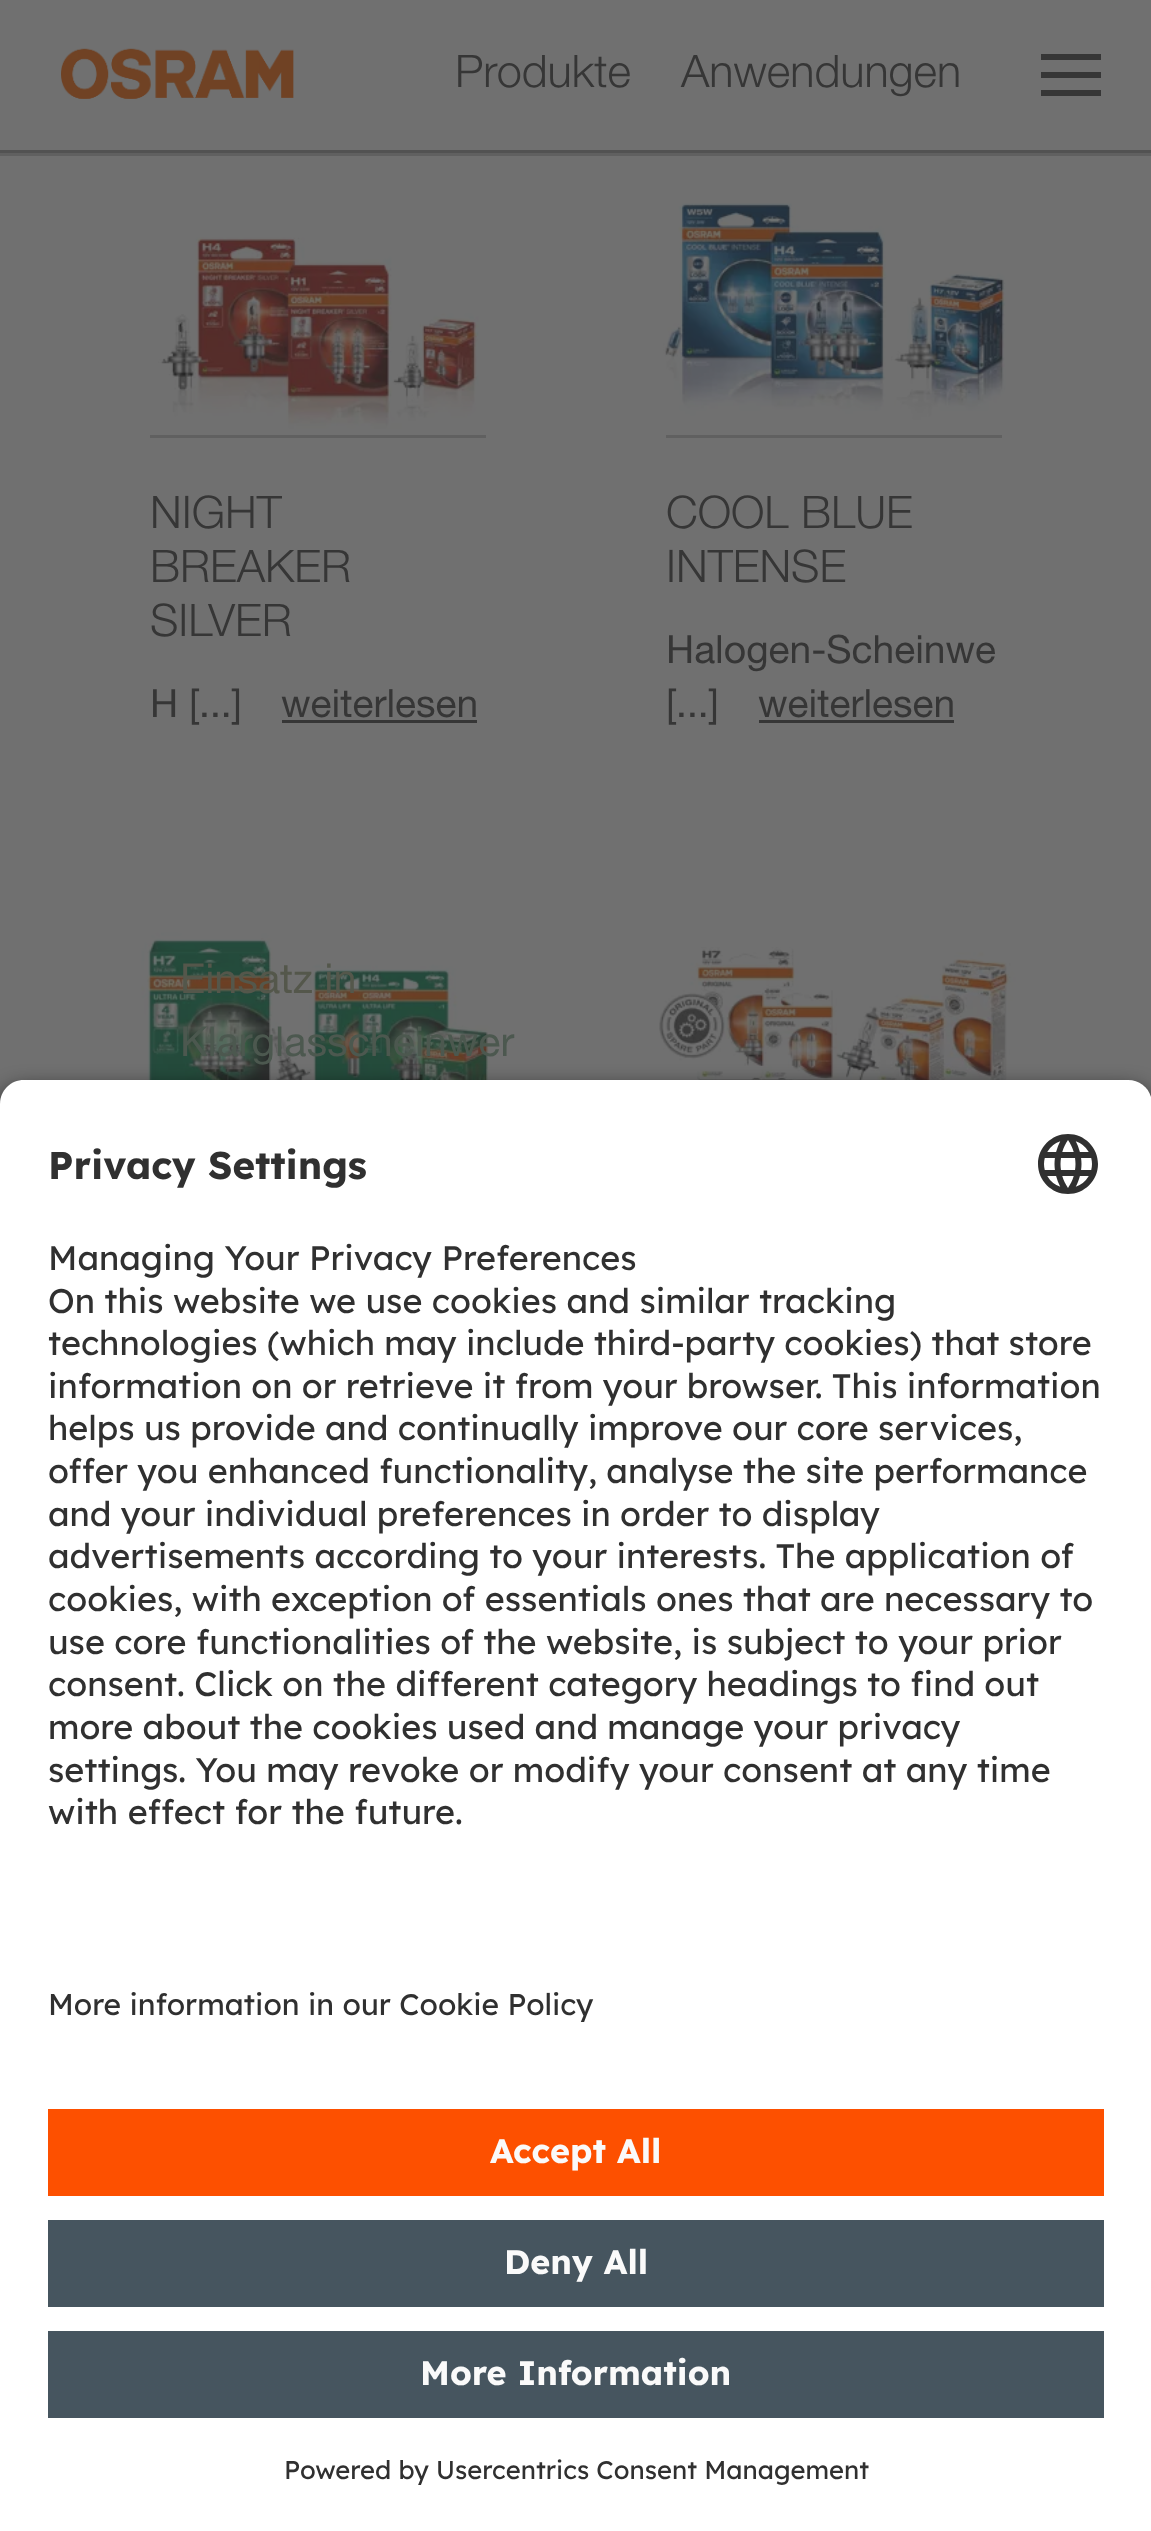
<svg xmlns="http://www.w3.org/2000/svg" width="1151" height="2531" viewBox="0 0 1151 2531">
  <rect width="100%" height="100%" fill="#707070"/>
  <image x="61" y="48" width="233" height="51" href="img/1.png"/>
  <path d="M1041 54H1101V60H1041ZM1041 72H1101V78H1041ZM1041 90H1101V96H1041Z" fill="#363636"/>
  <path d="M0 150h1151v3H0z" fill="#525252"/>
  <path d="M0 153h1151v3H0z" fill="#606060"/>
  <image x="158" y="237" width="321" height="192" href="img/2.png"/>
  <path d="M150 435h336v3H150z" fill="#606060"/>
  <path d="M282 720h195v3H282z" fill="#363636"/>
  <image x="663" y="203" width="343" height="217" href="img/3.png"/>
  <path d="M666 435h336v3H666z" fill="#606060"/>
  <path d="M759 720h195v3H759z" fill="#363636"/>
  <image x="141" y="932" width="349" height="148" href="img/4.png"/>
  <image x="659" y="947" width="357" height="133" href="img/5.png"/>
  <rect y="1089" width="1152" height="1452" rx="24" fill="#000000cc" filter="blur(10.5px)"/>
  <path d="M24 1080H1128C1141.5 1080 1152 1090.5 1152 1104V1938H0V1104C0 1090.5 10.5 1080 24 1080Z" fill="#fff"/>
  <image x="1038" y="1134" width="60" height="60" href="img/6.png"/>
  <path d="M0 1938h1151v593H0z" fill="#fff"/>
  <path d="M48 2109h1056v87H48z" fill="#fd5000"/>
  <path d="M48 2220h1056v87H48z" fill="#46555f"/>
  <path d="M48 2331h1056v87H48z" fill="#46555f"/>
  <g font-family="Helvetica Neue" font-size="45" font-weight="300" fill="#363636">
    <text x="455" y="87">Produkte</text>
    <text x="681" y="87">Anwendungen</text>
    <text x="150" y="528">NIGHT</text>
    <text x="150" y="582">BREAKER</text>
    <text x="150" y="636">SILVER</text>
  </g>
  <g font-family="Helvetica Neue" font-size="39" fill="#363636">
    <text x="150" y="717">H [...]</text>
    <text x="281" y="717">weiterlesen</text>
  </g>
  <g font-family="Helvetica Neue" font-size="45" font-weight="300" fill="#363636">
    <text x="666" y="528">COOL BLUE</text>
    <text x="666" y="582">INTENSE</text>
  </g>
  <g font-family="Helvetica Neue" font-size="39" fill="#363636">
    <text x="666" y="663">Halogen-Scheinwe</text>
    <text x="666" y="717">[...]</text>
    <text x="758" y="717">weiterlesen</text>
  </g>
  <text x="180" y="993" font-family="Helvetica Neue" font-size="41.25" fill="#54574b">Einsatz in</text>
  <text x="180" y="1056" font-family="Helvetica Neue" font-size="41.25" fill="#4c584f">Klarglasscheinwer</text>
  <text x="48" y="1179" font-family="Lexend" font-size="38.5" font-weight="bold" fill="#303030">Privacy Settings</text>
  <g font-family="Lexend" font-size="34.1" fill="#303030">
    <text x="48" y="1270">Managing Your Privacy Preferences</text>
    <text x="48" y="1313" word-spacing="-0.1">On this website we use cookies and similar tracking</text>
    <text x="48" y="1355" word-spacing="-0.25">technologies (which may include third-party cookies) that store</text>
    <text x="48" y="1398" word-spacing="-0.25">information on or retrieve it from your browser. This information</text>
    <text x="48" y="1440" word-spacing="-0.25">helps us provide and continually improve our core services,</text>
    <text x="48" y="1483" word-spacing="-0.25">offer you enhanced functionality, analyse the site performance</text>
    <text x="48" y="1526" word-spacing="-0.25">and your individual preferences in order to display</text>
    <text x="48" y="1568" word-spacing="-0.25">advertisements according to your interests. The application of</text>
    <text x="48" y="1611" word-spacing="-0.25">cookies, with exception of essentials ones that are necessary to</text>
    <text x="48" y="1654" word-spacing="-0.1">use core functionalities of the website, is subject to your prior</text>
    <text x="48" y="1696" word-spacing="-0.25">consent. Click on the different category headings to find out</text>
    <text x="48" y="1739" word-spacing="-0.25">more about the cookies used and manage your privacy</text>
    <text x="48" y="1782" word-spacing="-0.1">settings. You may revoke or modify your consent at any time</text>
    <text x="48" y="1824">with effect for the future.</text>
  </g>
  <text x="48" y="2015" font-family="Lexend" font-size="29.9" fill="#303030">More information in our Cookie Policy</text>
  <g font-family="Lexend" font-size="34.1" font-weight="bold" fill="#fafafa">
    <text x="490" y="2163">Accept All</text>
    <text x="504" y="2274">Deny All</text>
    <text x="420" y="2385">More Information</text>
  </g>
  <text x="284" y="2479" font-family="Lexend" font-size="25.6" fill="#303030">Powered by Usercentrics Consent Management</text>
</svg>
